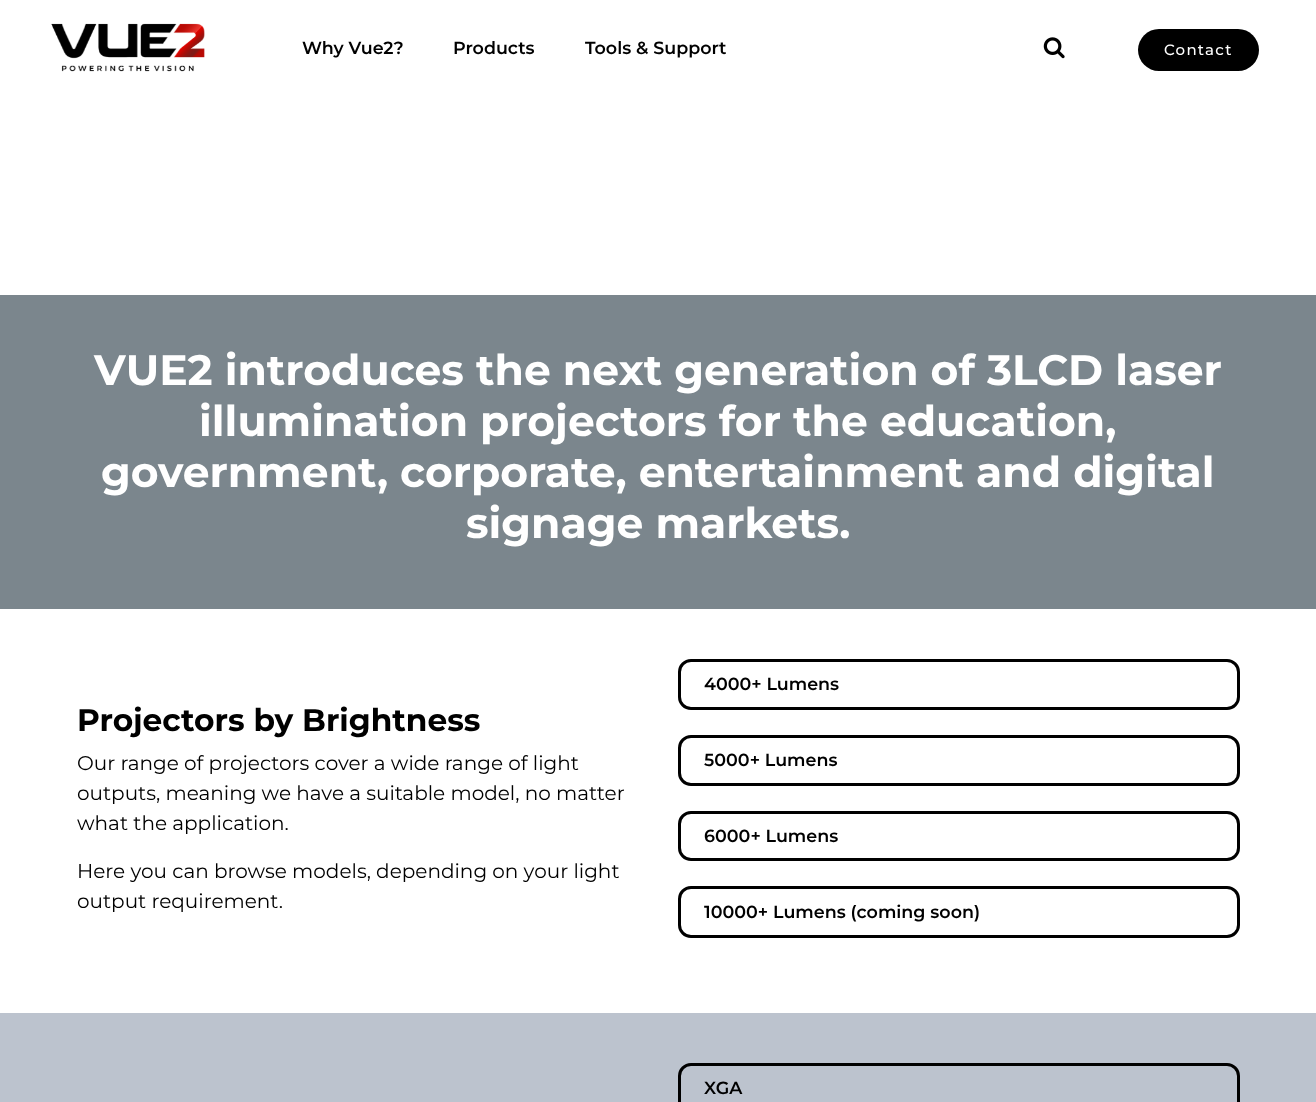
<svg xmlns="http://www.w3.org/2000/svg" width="1316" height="1102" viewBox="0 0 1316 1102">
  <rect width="100%" height="100%" fill="#fff"/>
  <image x="51" y="23" width="154" height="49" href="img/1.png"/>
  <image x="1043" y="37" width="22" height="22" href="img/2.png"/>
  <rect x="1138" y="29" width="121" height="42" rx="21" fill="#000"/>
  <path d="M0 295h1316v314H0z" fill="#7b868d"/>
  <rect x="679.5" y="660.5" width="559" height="48" rx="11.5" fill="none" stroke="#000" stroke-width="3"/>
  <rect x="679.5" y="736.5" width="559" height="48" rx="11.5" fill="none" stroke="#000" stroke-width="3"/>
  <rect x="679.5" y="812.5" width="559" height="47" rx="11.5" fill="none" stroke="#000" stroke-width="3"/>
  <rect x="679.5" y="887.5" width="559" height="49" rx="11.5" fill="none" stroke="#000" stroke-width="3"/>
  <path d="M0 1013h1316v89H0z" fill="#bcc3ce"/>
  <rect x="679.5" y="1064.5" width="559" height="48" rx="11.5" fill="none" stroke="#000" stroke-width="3"/>
  <g font-family="Montserrat" font-size="17.5" font-weight="600" fill="#000">
    <text x="302" y="54">Why Vue2?</text>
    <text x="453" y="54">Products</text>
    <text x="585" y="54">Tools &amp; Support</text>
  </g>
  <text x="1164" y="55" font-family="Montserrat" font-size="15" font-weight="500" letter-spacing="1.25" fill="#fff">Contact</text>
  <g font-family="Montserrat" font-size="42.5" font-weight="bold" fill="#fff">
    <text x="94" y="385">VUE2 introduces the next generation of 3LCD laser</text>
    <text x="199" y="436">illumination projectors for the education,</text>
    <text x="101" y="487">government, corporate, entertainment and digital</text>
    <text x="466" y="538">signage markets.</text>
  </g>
  <text x="77" y="731" font-family="Montserrat" font-size="31.25" font-weight="bold" fill="#000">Projectors by Brightness</text>
  <g font-family="Montserrat" font-size="20" fill="#000">
    <text x="77" y="770">Our range of projectors cover a wide range of light</text>
    <text x="77" y="800">outputs, meaning we have a suitable model, no matter</text>
    <text x="77" y="830">what the application.</text>
    <text x="77" y="878">Here you can browse models, depending on your light</text>
    <text x="77" y="908">output requirement.</text>
  </g>
  <g font-family="Montserrat" font-size="17.5" font-weight="600" fill="#000">
    <text x="704" y="690">4000+ Lumens</text>
    <text x="704" y="766">5000+ Lumens</text>
    <text x="704" y="842">6000+ Lumens</text>
    <text x="704" y="918">10000+ Lumens (coming soon)</text>
    <text x="704" y="1094">XGA</text>
  </g>
</svg>
